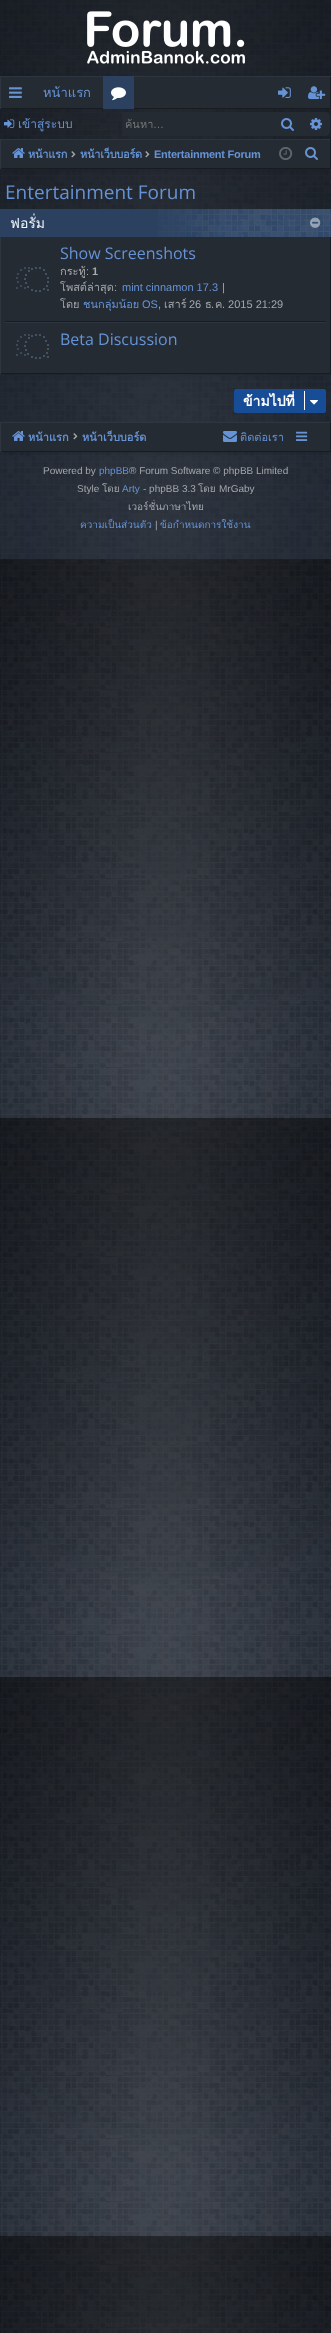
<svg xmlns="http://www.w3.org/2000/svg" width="331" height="2333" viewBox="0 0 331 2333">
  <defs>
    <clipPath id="clip1"><path d="M0 76h331v33H0z"/></clipPath>
    <clipPath id="clip2"><path d="M125 115h140v18H125z"/></clipPath>
  </defs>
  <rect width="100%" height="100%" fill="#1c232e"/>
  <image x="0" y="559" width="331" height="1774" href="img/1.png"/>
  <image x="0" y="0" width="331" height="2333" href="img/2.png"/>
  <image x="87" y="11" width="158" height="53" href="img/3.png"/>
  <path d="M1 77h329v31H1z" fill="#252b33"/>
  <g clip-path="url(#clip1)">
    <path d="M-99-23H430V208H-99ZM-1 75H330V108H-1Z" fill="#181c21" fill-rule="evenodd"/>
    <path d="M-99-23H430V208H-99ZM1 77H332V110H1Z" fill="#2e353f" fill-rule="evenodd"/>
  </g>
  <image x="9" y="87" width="13" height="11" href="img/4.png"/>
  <path d="M103 76h31v33H103z" fill="#2c415f"/>
  <image x="111" y="87" width="15" height="14" href="img/5.png"/>
  <image x="278" y="87" width="13" height="11" href="img/6.png"/>
  <image x="308" y="86" width="18" height="14" href="img/7.png"/>
  <image x="4" y="119" width="11" height="9" href="img/8.png"/>
  <path d="M122 112h150v24H122z" fill="#252b33"/>
  <path d="M272 112h30v24H272z" fill="#252b33"/>
  <image x="281" y="118" width="13" height="13" href="img/9.png"/>
  <path d="M302 112H326C328 112 330 114 330 116V132C330 134 328 136 326 136H302Z" fill="#252b33"/>
  <image x="310" y="118" width="12" height="12" href="img/10.png"/>
  <path d="M5 149h321v20H5z" fill="#00000033" filter="blur(2.5px)"/>
  <path d="M1 140h329v28H1z" fill="#252b33"/>
  <path d="M0 139h331v1H0z" fill="#2e353f"/>
  <path d="M330 139h1v30H330z" fill="#181c21"/>
  <path d="M0 168h331v1H0z" fill="#181c21"/>
  <path d="M0 139h1v30H0z" fill="#2e353f"/>
  <image x="12" y="148" width="13" height="10" href="img/11.png"/>
  <image x="71" y="151" width="5" height="7" href="img/12.png"/>
  <image x="145" y="151" width="5" height="7" href="img/12.png"/>
  <image x="279" y="147" width="14" height="13" href="img/13.png"/>
  <image x="305" y="147" width="13" height="13" href="img/9.png"/>
  <path d="M5 219h321v155H5z" fill="#00000033" filter="blur(2.5px)"/>
  <path d="M1 237h329v136H1z" fill="#252b33"/>
  <path d="M330 237h1v137H330z" fill="#181c21"/>
  <path d="M0 373h331v1H0z" fill="#181c21"/>
  <path d="M0 237h1v137H0z" fill="#2e353f"/>
  <path d="M0 209h331v28H0z" fill="#2c415f"/>
  <image x="158" y="209" width="173" height="28" href="img/14.png"/>
  <image x="310" y="217" width="11" height="11" href="img/15.png"/>
  <path d="M5 321h321v1H5z" fill="#181c21"/>
  <image x="16" y="267" width="33" height="25" href="img/16.png"/>
  <path d="M5 322h321v1H5z" fill="#2e353f"/>
  <image x="16" y="334" width="33" height="25" href="img/16.png"/>
  <rect x="234.5" y="389.5" width="91" height="23" rx="1.5" fill="#174c97" stroke="#174c97"/>
  <path d="M304 391h1v19H304z" fill="#fff"/>
  <image x="310" y="400" width="8" height="5" href="img/17.png"/>
  <path d="M5 432h321v20H5z" fill="#00000033" filter="blur(2.5px)"/>
  <path d="M1 423h329v28H1z" fill="#252b33"/>
  <path d="M0 422h331v1H0z" fill="#2e353f"/>
  <path d="M330 422h1v30H330z" fill="#181c21"/>
  <path d="M0 451h331v1H0z" fill="#181c21"/>
  <path d="M0 422h1v30H0z" fill="#2e353f"/>
  <image x="12" y="431" width="13" height="10" href="img/11.png"/>
  <image x="73" y="433" width="5" height="7" href="img/12.png"/>
  <image x="223" y="431" width="14" height="11" href="img/18.png"/>
  <image x="296" y="431" width="12" height="10" href="img/19.png"/>
  <text x="43" y="97" font-family="Loma" font-size="13" fill="#6593d6">หน้าแรก</text>
  <text x="18" y="128" font-family="Loma" font-size="12" fill="#6593d6">เข้าสู่ระบบ</text>
  <g clip-path="url(#clip2)">
    <text x="125" y="128" font-family="Loma" font-size="11" fill="#757677">ค้นหา</text>
  </g>
  <text x="153" y="128" font-family="Liberation Sans" font-size="11" fill="#757677">…</text>
  <g font-family="Loma" font-size="11" font-weight="bold" letter-spacing="-0.25" fill="#6593d6">
    <text x="28" y="158">หน้าแรก</text>
    <text x="80" y="158">หน้าเว็บบอร์ด</text>
  </g>
  <text x="154" y="158" font-family="Liberation Sans" font-size="11" font-weight="bold" letter-spacing="-0.25" fill="#6593d6">Entertainment Forum</text>
  <text x="5" y="199" font-family="Open Sans" font-size="19" fill="#6593d6">Entertainment Forum</text>
  <text x="10" y="228" font-family="Loma" font-size="14" fill="#f1f6fc">ฟอรั่ม</text>
  <text x="60" y="259" font-family="Open Sans" font-size="16" fill="#6593d6">Show Screenshots</text>
  <text x="60" y="275" font-family="Loma" font-size="11" fill="#aaa">กระทู้</text>
  <text x="86" y="275" font-family="Liberation Sans" font-size="11" fill="#aaa">:</text>
  <text x="92" y="275" font-family="Liberation Sans" font-size="11" font-weight="bold" fill="#aaa">1</text>
  <text x="60" y="291" font-family="Loma" font-size="11" fill="#a4a7ab">โพสต์ล่าสุด</text>
  <text x="114" y="291" font-family="Liberation Sans" font-size="11" fill="#a4a7ab">:</text>
  <text x="122" y="291" font-family="Liberation Sans" font-size="11" fill="#6593d6">mint cinnamon 17.3</text>
  <text x="222" y="291" font-family="Liberation Sans" font-size="11" fill="#a4a7ab">|</text>
  <text x="60" y="308" font-family="Loma" font-size="11" fill="#a4a7ab">โดย</text>
  <text x="83" y="308" font-family="Loma" font-size="11" fill="#6593d6">ชนกลุ่มน้อย</text>
  <text x="142" y="308" font-family="Liberation Sans" font-size="11" fill="#6593d6">OS</text>
  <text x="158" y="308" font-family="Liberation Sans" font-size="11" fill="#a4a7ab">,</text>
  <text x="164" y="308" font-family="Loma" font-size="11" fill="#a4a7ab">เสาร์</text>
  <text x="189" y="308" font-family="Liberation Sans" font-size="11" fill="#a4a7ab">26</text>
  <text x="205" y="308" font-family="Loma" font-size="11" fill="#a4a7ab">ธ</text>
  <text x="211" y="308" font-family="Liberation Sans" font-size="11" fill="#a4a7ab">.</text>
  <text x="215" y="308" font-family="Loma" font-size="11" fill="#a4a7ab">ค</text>
  <text x="222" y="308" font-family="Liberation Sans" font-size="11" fill="#a4a7ab">. 2015 21:29</text>
  <text x="60" y="345" font-family="Open Sans" font-size="16" fill="#6593d6">Beta Discussion</text>
  <text x="243" y="406" font-family="Loma" font-size="14" font-weight="bold" fill="#fff">ข้ามไปที่</text>
  <g font-family="Loma" font-size="11" font-weight="bold" fill="#6593d6">
    <text x="28" y="441">หน้าแรก</text>
    <text x="82" y="441">หน้าเว็บบอร์ด</text>
  </g>
  <text x="240" y="441" font-family="Loma" font-size="11" fill="#6593d6">ติดต่อเรา</text>
  <text x="43" y="474" font-family="Liberation Sans" font-size="10" fill="#a4a7ab">Powered by</text>
  <text x="99" y="474" font-family="Liberation Sans" font-size="10" fill="#6593d6">phpBB</text>
  <g font-family="Liberation Sans" font-size="10" fill="#a4a7ab">
    <text x="129" y="474">® Forum Software © phpBB Limited</text>
    <text x="77" y="492">Style</text>
  </g>
  <text x="102" y="492" font-family="Loma" font-size="10" fill="#a4a7ab">โดย</text>
  <text x="122" y="492" font-family="Liberation Sans" font-size="10" fill="#6593d6">Arty</text>
  <text x="143" y="492" font-family="Liberation Sans" font-size="10" fill="#a4a7ab">- phpBB 3.3</text>
  <text x="198" y="492" font-family="Loma" font-size="10" fill="#a4a7ab">โดย</text>
  <text x="219" y="492" font-family="Liberation Sans" font-size="10" fill="#a4a7ab">MrGaby</text>
  <text x="128" y="510" font-family="Loma" font-size="10" fill="#a4a7ab">เวอร์ชั่นภาษาไทย</text>
  <text x="80" y="528" font-family="Loma" font-size="10" fill="#6593d6">ความเป็นส่วนตัว</text>
  <text x="155" y="528" font-family="Liberation Sans" font-size="10" fill="#a4a7ab">|</text>
  <text x="160" y="528" font-family="Loma" font-size="10" fill="#6593d6">ข้อกำหนดการใช้งาน</text>
</svg>
